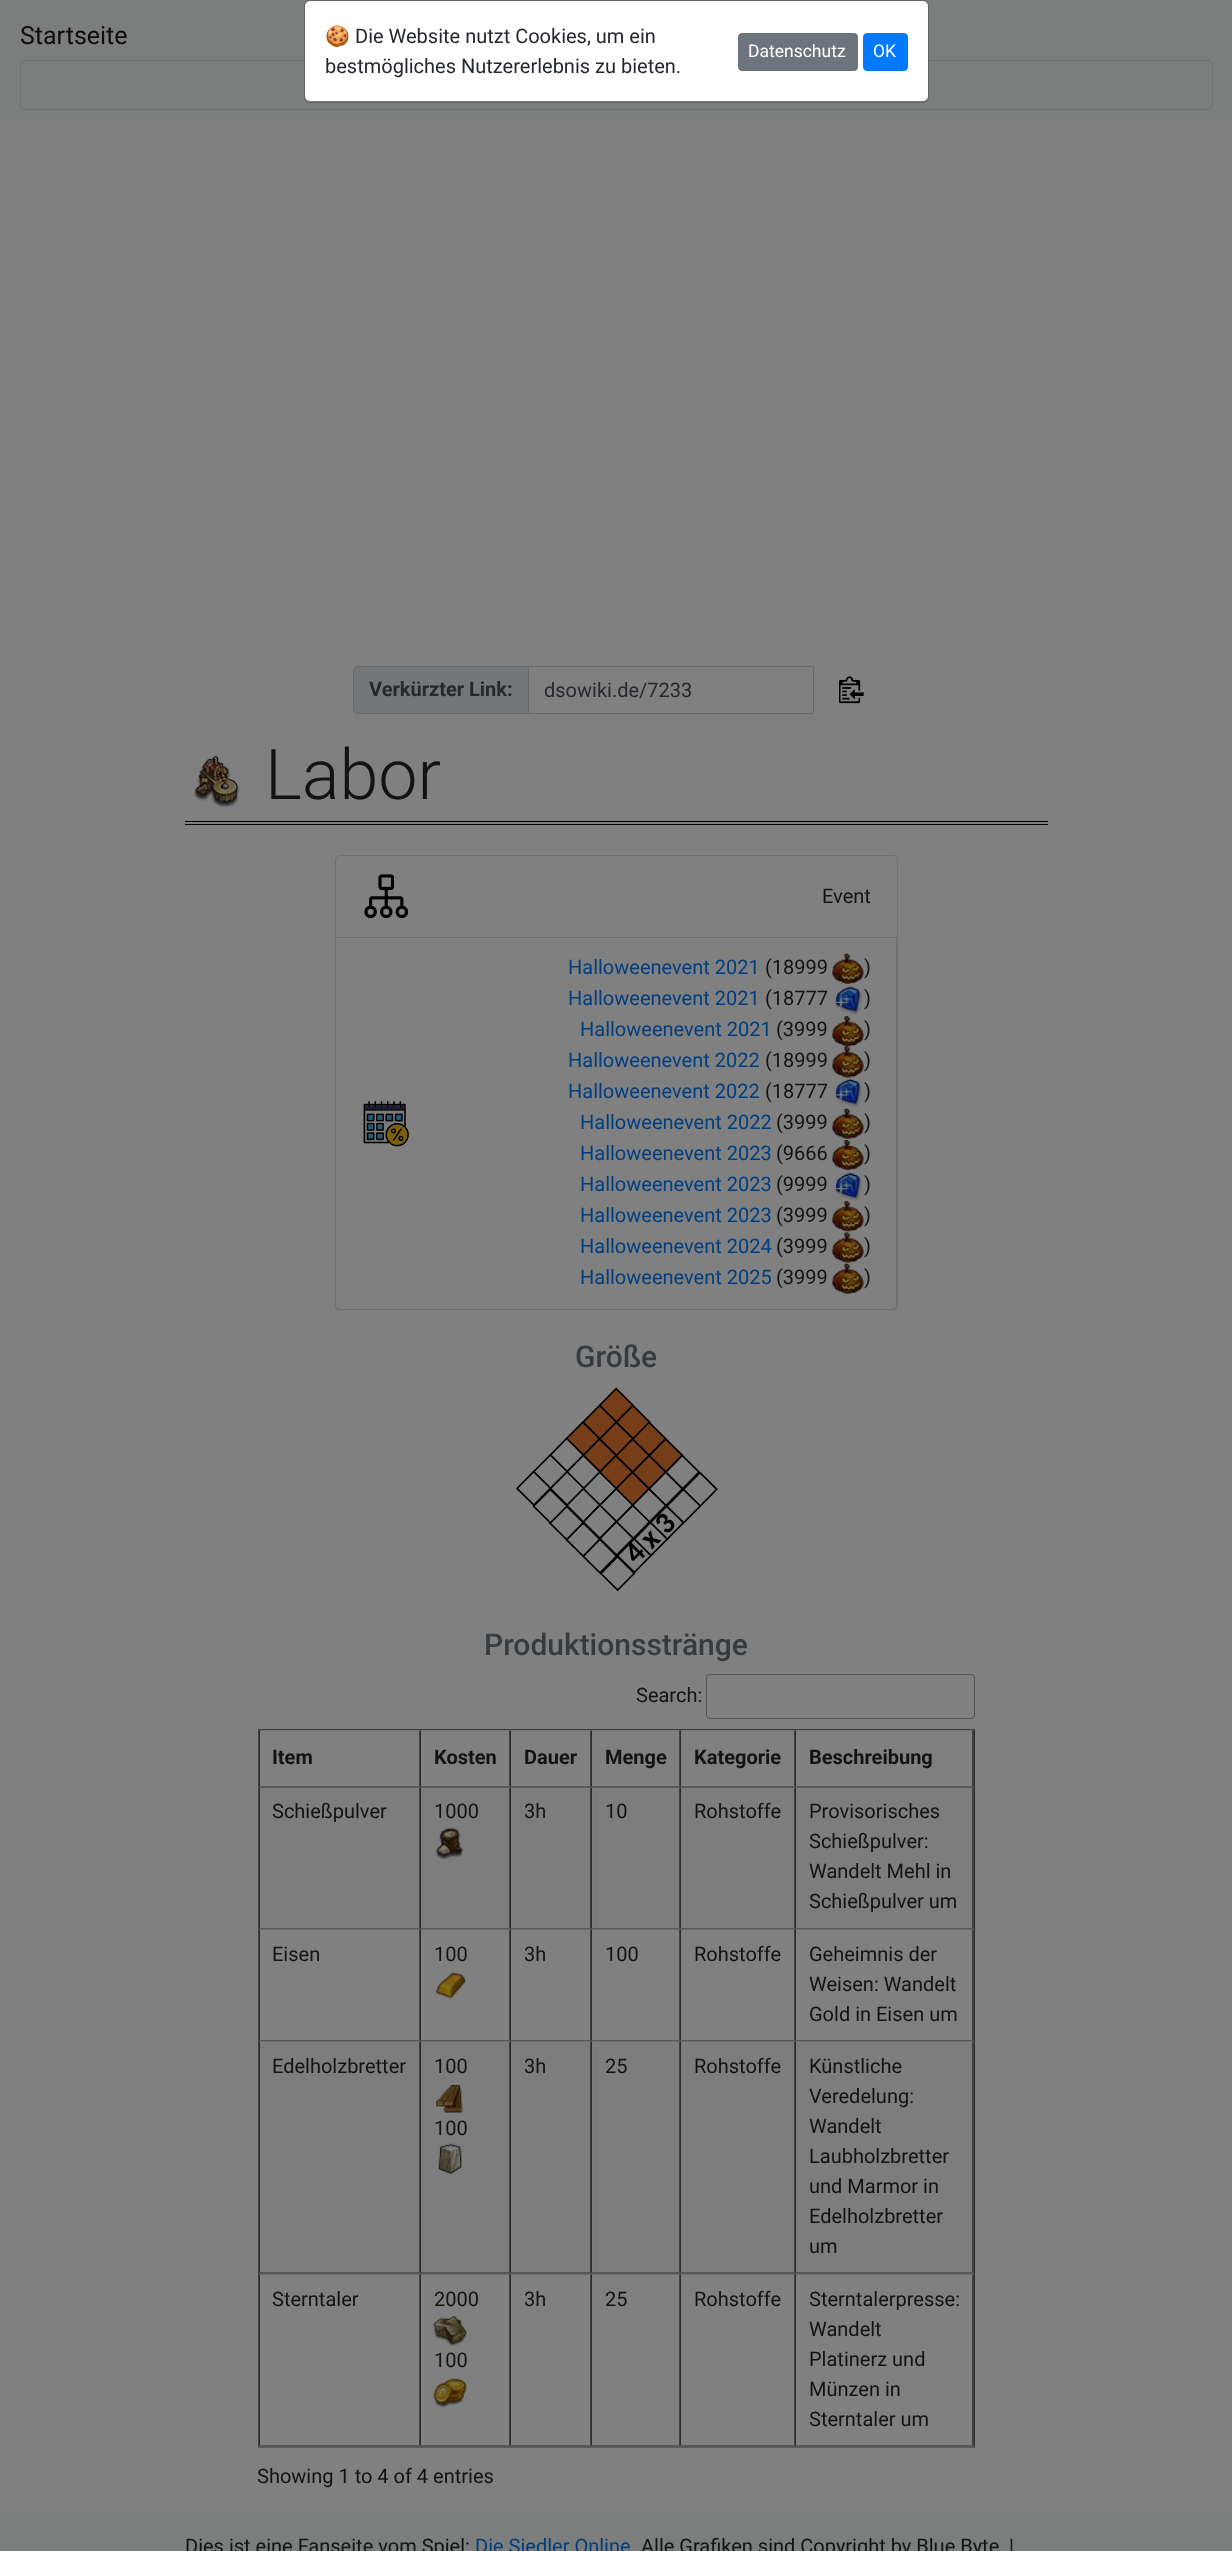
<svg xmlns="http://www.w3.org/2000/svg" width="1232" height="2551" viewBox="0 0 1232 2551">
  <rect width="100%" height="100%" fill="#808080"/>
  <path d="M0 0h1232v120H0z" fill="#7c7d7d"/>
  <rect x="20.5" y="60.5" width="1192" height="49" rx="4.5" fill="none" stroke="#707071"/>
  <rect x="305" y="1" width="623" height="100" rx="5" fill="#fff"/>
  <rect x="304.5" y="0.5" width="624" height="102" rx="5.5" fill="none" stroke="#00000033"/>
  <rect x="738.5" y="33.5" width="119" height="37" rx="3.5" fill="#6c757d" stroke="#6c757d"/>
  <rect x="863.5" y="33.5" width="44" height="37" rx="3.5" fill="#007bff" stroke="#007bff"/>
  <path d="M358 666.5H528.5V713.5H358C355.5 713.5 353.5 711.5 353.5 709V671C353.5 668.5 355.5 666.5 358 666.5Z" fill="#757678" stroke="#676a6d"/>
  <path d="M528.5 666.5h285v47H528.5z" fill="none" stroke="#676a6d"/>
  <image x="839" y="676" width="25" height="28" href="img/1.png"/>
  <path d="M185 821h863v1H185z" fill="#000"/>
  <path d="M185 824h863v1H185z" fill="#000"/>
  <image x="193" y="755" width="47" height="53" href="img/2.png"/>
  <path d="M340 855.5H893C895.5 855.5 897.5 857.5 897.5 860V937.5H335.5V860C335.5 857.5 337.5 855.5 340 855.5Z" fill="none" stroke="#707070"/>
  <image x="364" y="874" width="45" height="45" href="img/3.png"/>
  <path d="M335 938H898V1305C898 1308 895 1310 892 1310H340C337 1310 335 1308 335 1305ZM336 938H896V1305C896 1307 895 1309 892 1309H340C338 1309 336 1307 336 1305Z" fill="#707070" fill-rule="evenodd"/>
  <image x="363" y="1101" width="46" height="46" href="img/4.png"/>
  <image x="832" y="953" width="32" height="31" href="img/5.png"/>
  <image x="834" y="986" width="28" height="29" href="img/6.png"/>
  <image x="832" y="1016" width="32" height="31" href="img/7.png"/>
  <image x="832" y="1046" width="32" height="32" href="img/8.png"/>
  <image x="834" y="1078" width="28" height="29" href="img/9.png"/>
  <image x="832" y="1108" width="32" height="31" href="img/5.png"/>
  <image x="832" y="1140" width="32" height="30" href="img/10.png"/>
  <image x="834" y="1172" width="28" height="29" href="img/11.png"/>
  <image x="832" y="1201" width="32" height="31" href="img/7.png"/>
  <image x="832" y="1232" width="32" height="31" href="img/12.png"/>
  <image x="832" y="1263" width="32" height="31" href="img/5.png"/>
  <image x="516" y="1387" width="202" height="205" href="img/13.png"/>
  <rect x="706.5" y="1674.5" width="268" height="44" rx="3.5" fill="none" stroke="#555"/>
  <path d="M258 1729h717v1H258z" fill="#404040"/>
  <path d="M975 1729V2448L974 2446V1730Z" fill="#2b2b2b"/>
  <path d="M975 2448H258L259 2446H974Z" fill="#0000004d"/>
  <path d="M258 2448V1729L259 1730V2446Z" fill="#404040"/>
  <path d="M259 1730h715v1H259z" fill="#6f7173"/>
  <path d="M420 1730V1788L419 1786V1731Z" fill="#404040"/>
  <path d="M420 1788H259L260 1786H419Z" fill="#0000004d"/>
  <path d="M259 1788V1730L260 1731V1786Z" fill="#2b2b2b"/>
  <path d="M510 1730V1788L509 1786V1731Z" fill="#404040"/>
  <path d="M510 1788H420L421 1786H509Z" fill="#0000004d"/>
  <path d="M420 1788V1730L421 1731V1786Z" fill="#2b2b2b"/>
  <path d="M591 1730V1788L590 1786V1731Z" fill="#404040"/>
  <path d="M591 1788H510L511 1786H590Z" fill="#0000004d"/>
  <path d="M510 1788V1730L511 1731V1786Z" fill="#2b2b2b"/>
  <path d="M680 1730V1788L679 1786V1731Z" fill="#404040"/>
  <path d="M680 1788H591L592 1786H679Z" fill="#0000004d"/>
  <path d="M591 1788V1730L592 1731V1786Z" fill="#2b2b2b"/>
  <path d="M795 1730V1788L794 1786V1731Z" fill="#404040"/>
  <path d="M795 1788H680L681 1786H794Z" fill="#0000004d"/>
  <path d="M680 1788V1730L681 1731V1786Z" fill="#2b2b2b"/>
  <path d="M974 1730V1788L972 1786V1731Z" fill="#404040"/>
  <path d="M974 1788H795L796 1786H972Z" fill="#0000004d"/>
  <path d="M795 1788V1730L796 1731V1786Z" fill="#2b2b2b"/>
  <path d="M260 1788h159v140H260z" fill="#7d7d7d"/>
  <path d="M420 1788V1929L419 1928V1788Z" fill="#404040"/>
  <path d="M420 1929H259L260 1928H419Z" fill="#0000004d"/>
  <path d="M259 1929V1788H260V1928Z" fill="#2b2b2b"/>
  <path d="M421 1788h88v140H421z" fill="#7d7d7d"/>
  <path d="M510 1788V1929L509 1928V1788Z" fill="#404040"/>
  <path d="M510 1929H420L421 1928H509Z" fill="#0000004d"/>
  <path d="M420 1929V1788H421V1928Z" fill="#2b2b2b"/>
  <image x="436" y="1827" width="27" height="32" href="img/14.png"/>
  <path d="M511 1788h79v140H511z" fill="#7d7d7d"/>
  <path d="M591 1788V1929L590 1928V1788Z" fill="#404040"/>
  <path d="M591 1929H510L511 1928H590Z" fill="#0000004d"/>
  <path d="M510 1929V1788H511V1928Z" fill="#2b2b2b"/>
  <path d="M593 1788h86v140H593z" fill="#7d7d7d"/>
  <path d="M680 1788V1929L679 1928V1788Z" fill="#404040"/>
  <path d="M680 1929H591L592 1928H679Z" fill="#0000004d"/>
  <path d="M591 1929V1788H592V1928Z" fill="#2b2b2b"/>
  <path d="M681 1788h113v140H681z" fill="#7d7d7d"/>
  <path d="M795 1788V1929L794 1928V1788Z" fill="#404040"/>
  <path d="M795 1929H680L681 1928H794Z" fill="#0000004d"/>
  <path d="M680 1929V1788H681V1928Z" fill="#2b2b2b"/>
  <path d="M796 1788h176v140H796z" fill="#7d7d7d"/>
  <path d="M974 1788V1929L972 1928V1788Z" fill="#404040"/>
  <path d="M974 1929H795L796 1928H972Z" fill="#0000004d"/>
  <path d="M795 1929V1788H796V1928Z" fill="#2b2b2b"/>
  <path d="M259 1929H420L419 1930H260Z" fill="#6d6d6d"/>
  <path d="M420 1929V2041L419 2040V1930Z" fill="#404040"/>
  <path d="M420 2041H259L260 2040H419Z" fill="#0000004d"/>
  <path d="M259 2041V1929L260 1930V2040Z" fill="#2b2b2b"/>
  <path d="M420 1929H510L509 1930H421Z" fill="#6d6d6d"/>
  <path d="M510 1929V2041L509 2040V1930Z" fill="#404040"/>
  <path d="M510 2041H420L421 2040H509Z" fill="#0000004d"/>
  <path d="M420 2041V1929L421 1930V2040Z" fill="#2b2b2b"/>
  <image x="436" y="1972" width="31" height="27" href="img/15.png"/>
  <path d="M510 1929H591L590 1930H511Z" fill="#6d6d6d"/>
  <path d="M591 1929V2041L590 2040V1930Z" fill="#404040"/>
  <path d="M591 2041H510L511 2040H590Z" fill="#0000004d"/>
  <path d="M510 2041V1929L511 1930V2040Z" fill="#2b2b2b"/>
  <path d="M591 1929H680L679 1930H592Z" fill="#6d6d6d"/>
  <path d="M680 1929V2041L679 2040V1930Z" fill="#404040"/>
  <path d="M680 2041H591L592 2040H679Z" fill="#0000004d"/>
  <path d="M591 2041V1929L592 1930V2040Z" fill="#2b2b2b"/>
  <path d="M680 1929H795L794 1930H681Z" fill="#6d6d6d"/>
  <path d="M795 1929V2041L794 2040V1930Z" fill="#404040"/>
  <path d="M795 2041H680L681 2040H794Z" fill="#0000004d"/>
  <path d="M680 2041V1929L681 1930V2040Z" fill="#2b2b2b"/>
  <path d="M795 1929H974L972 1930H796Z" fill="#6d6d6d"/>
  <path d="M974 1929V2041L972 2040V1930Z" fill="#404040"/>
  <path d="M974 2041H795L796 2040H972Z" fill="#0000004d"/>
  <path d="M795 2041V1929L796 1930V2040Z" fill="#2b2b2b"/>
  <path d="M260 2043h159v230H260z" fill="#7d7d7d"/>
  <path d="M259 2041H420L419 2042H260Z" fill="#6d6d6d"/>
  <path d="M420 2041V2274L419 2272V2042Z" fill="#404040"/>
  <path d="M420 2274H259L260 2272H419Z" fill="#0000004d"/>
  <path d="M259 2274V2041L260 2042V2272Z" fill="#2b2b2b"/>
  <path d="M421 2043h88v230H421z" fill="#7d7d7d"/>
  <path d="M420 2041H510L509 2042H421Z" fill="#6d6d6d"/>
  <path d="M510 2041V2274L509 2272V2042Z" fill="#404040"/>
  <path d="M510 2274H420L421 2272H509Z" fill="#0000004d"/>
  <path d="M420 2274V2041L421 2042V2272Z" fill="#2b2b2b"/>
  <image x="436" y="2084" width="27" height="29" href="img/16.png"/>
  <image x="438" y="2143" width="24" height="31" href="img/17.png"/>
  <path d="M511 2043h79v230H511z" fill="#7d7d7d"/>
  <path d="M510 2041H591L590 2042H511Z" fill="#6d6d6d"/>
  <path d="M591 2041V2274L590 2272V2042Z" fill="#404040"/>
  <path d="M591 2274H510L511 2272H590Z" fill="#0000004d"/>
  <path d="M510 2274V2041L511 2042V2272Z" fill="#2b2b2b"/>
  <path d="M593 2043h86v230H593z" fill="#7d7d7d"/>
  <path d="M591 2041H680L679 2042H592Z" fill="#6d6d6d"/>
  <path d="M680 2041V2274L679 2272V2042Z" fill="#404040"/>
  <path d="M680 2274H591L592 2272H679Z" fill="#0000004d"/>
  <path d="M591 2274V2041L592 2042V2272Z" fill="#2b2b2b"/>
  <path d="M681 2043h113v230H681z" fill="#7d7d7d"/>
  <path d="M680 2041H795L794 2042H681Z" fill="#6d6d6d"/>
  <path d="M795 2041V2274L794 2272V2042Z" fill="#404040"/>
  <path d="M795 2274H680L681 2272H794Z" fill="#0000004d"/>
  <path d="M680 2274V2041L681 2042V2272Z" fill="#2b2b2b"/>
  <path d="M796 2043h177v230H796z" fill="#7d7d7d"/>
  <path d="M795 2041H974L972 2042H796Z" fill="#6d6d6d"/>
  <path d="M974 2041V2274L972 2272V2042Z" fill="#404040"/>
  <path d="M974 2274H795L796 2272H972Z" fill="#0000004d"/>
  <path d="M795 2274V2041L796 2042V2272Z" fill="#2b2b2b"/>
  <path d="M259 2274H420L419 2275H260Z" fill="#6d6d6d"/>
  <path d="M420 2274V2446L419 2445V2275Z" fill="#404040"/>
  <path d="M420 2446H259L260 2445H419Z" fill="#0000004d"/>
  <path d="M259 2446V2274L260 2275V2445Z" fill="#2b2b2b"/>
  <path d="M420 2274H510L509 2275H421Z" fill="#6d6d6d"/>
  <path d="M510 2274V2446L509 2445V2275Z" fill="#404040"/>
  <path d="M510 2446H420L421 2445H509Z" fill="#0000004d"/>
  <path d="M420 2446V2274L421 2275V2445Z" fill="#2b2b2b"/>
  <image x="433" y="2316" width="34" height="31" href="img/18.png"/>
  <image x="433" y="2378" width="34" height="30" href="img/19.png"/>
  <path d="M510 2274H591L590 2275H511Z" fill="#6d6d6d"/>
  <path d="M591 2274V2446L590 2445V2275Z" fill="#404040"/>
  <path d="M591 2446H510L511 2445H590Z" fill="#0000004d"/>
  <path d="M510 2446V2274L511 2275V2445Z" fill="#2b2b2b"/>
  <path d="M591 2274H680L679 2275H592Z" fill="#6d6d6d"/>
  <path d="M680 2274V2446L679 2445V2275Z" fill="#404040"/>
  <path d="M680 2446H591L592 2445H679Z" fill="#0000004d"/>
  <path d="M591 2446V2274L592 2275V2445Z" fill="#2b2b2b"/>
  <path d="M680 2274H795L794 2275H681Z" fill="#6d6d6d"/>
  <path d="M795 2274V2446L794 2445V2275Z" fill="#404040"/>
  <path d="M795 2446H680L681 2445H794Z" fill="#0000004d"/>
  <path d="M680 2446V2274L681 2275V2445Z" fill="#2b2b2b"/>
  <path d="M795 2274H974L972 2275H796Z" fill="#6d6d6d"/>
  <path d="M974 2274V2446L972 2445V2275Z" fill="#404040"/>
  <path d="M974 2446H795L796 2445H972Z" fill="#0000004d"/>
  <path d="M795 2446V2274L796 2275V2445Z" fill="#2b2b2b"/>
  <path d="M0 2513h1232v38H0z" fill="#7c7d7d"/>
  <text x="20" y="44" font-family="Roboto" font-size="25" fill="#0d0d0d">Startseite</text>
  <text x="325" y="43" font-family="Noto Color Emoji" font-size="20" fill="#25282c">🍪</text>
  <g font-family="Roboto" font-size="20" fill="#25282c">
    <text x="355" y="43">Die Website nutzt Cookies, um ein</text>
    <text x="325" y="73">bestmögliches Nutzererlebnis zu bieten.</text>
  </g>
  <g font-family="Roboto" font-size="17.5" fill="#fff">
    <text x="748" y="57">Datenschutz</text>
    <text x="873" y="57">OK</text>
  </g>
  <text x="369" y="696" font-family="Roboto" font-size="20" font-weight="bold" fill="#25282c">Verkürzter Link:</text>
  <text x="544" y="697" font-family="Roboto" font-size="20" fill="#25282c">dsowiki.de/7233</text>
  <text x="265" y="799" font-family="Roboto" font-size="70" font-weight="300" fill="#111315">Labor</text>
  <text x="822" y="903" font-family="Roboto" font-size="20" fill="#111315">Event</text>
  <text x="568" y="974" font-family="Roboto" font-size="20" fill="#003e80">Halloweenevent 2021</text>
  <g font-family="Roboto" font-size="20" fill="#111315">
    <text x="765" y="974">(18999</text>
    <text x="864" y="974">)</text>
  </g>
  <text x="568" y="1005" font-family="Roboto" font-size="20" fill="#003e80">Halloweenevent 2021</text>
  <g font-family="Roboto" font-size="20" fill="#111315">
    <text x="765" y="1005">(18777</text>
    <text x="864" y="1005">)</text>
  </g>
  <text x="580" y="1036" font-family="Roboto" font-size="20" fill="#003e80">Halloweenevent 2021</text>
  <g font-family="Roboto" font-size="20" fill="#111315">
    <text x="776" y="1036">(3999</text>
    <text x="864" y="1036">)</text>
  </g>
  <text x="568" y="1067" font-family="Roboto" font-size="20" fill="#003e80">Halloweenevent 2022</text>
  <g font-family="Roboto" font-size="20" fill="#111315">
    <text x="765" y="1067">(18999</text>
    <text x="864" y="1067">)</text>
  </g>
  <text x="568" y="1098" font-family="Roboto" font-size="20" fill="#003e80">Halloweenevent 2022</text>
  <g font-family="Roboto" font-size="20" fill="#111315">
    <text x="765" y="1098">(18777</text>
    <text x="864" y="1098">)</text>
  </g>
  <text x="580" y="1129" font-family="Roboto" font-size="20" fill="#003e80">Halloweenevent 2022</text>
  <g font-family="Roboto" font-size="20" fill="#111315">
    <text x="776" y="1129">(3999</text>
    <text x="864" y="1129">)</text>
  </g>
  <text x="580" y="1160" font-family="Roboto" font-size="20" fill="#003e80">Halloweenevent 2023</text>
  <g font-family="Roboto" font-size="20" fill="#111315">
    <text x="776" y="1160">(9666</text>
    <text x="864" y="1160">)</text>
  </g>
  <text x="580" y="1191" font-family="Roboto" font-size="20" fill="#003e80">Halloweenevent 2023</text>
  <g font-family="Roboto" font-size="20" fill="#111315">
    <text x="776" y="1191">(9999</text>
    <text x="864" y="1191">)</text>
  </g>
  <text x="580" y="1222" font-family="Roboto" font-size="20" fill="#003e80">Halloweenevent 2023</text>
  <g font-family="Roboto" font-size="20" fill="#111315">
    <text x="776" y="1222">(3999</text>
    <text x="864" y="1222">)</text>
  </g>
  <text x="580" y="1253" font-family="Roboto" font-size="20" fill="#003e80">Halloweenevent 2024</text>
  <g font-family="Roboto" font-size="20" fill="#111315">
    <text x="776" y="1253">(3999</text>
    <text x="864" y="1253">)</text>
  </g>
  <text x="580" y="1284" font-family="Roboto" font-size="20" fill="#003e80">Halloweenevent 2025</text>
  <g font-family="Roboto" font-size="20" fill="#111315">
    <text x="776" y="1284">(3999</text>
    <text x="864" y="1284">)</text>
  </g>
  <g font-family="Roboto" font-size="30" font-weight="500" fill="#363b3f">
    <text x="575" y="1367">Größe</text>
    <text x="484" y="1655">Produktionsstränge</text>
  </g>
  <text x="636" y="1702" font-family="Roboto" font-size="20" fill="#111315">Search:</text>
  <g font-family="Roboto" font-size="20" font-weight="bold" fill="#111315">
    <text x="272" y="1764">Item</text>
    <text x="434" y="1764">Kosten</text>
    <text x="524" y="1764">Dauer</text>
    <text x="605" y="1764">Menge</text>
    <text x="694" y="1764">Kategorie</text>
    <text x="809" y="1764">Beschreibung</text>
  </g>
  <g font-family="Roboto" font-size="20" fill="#111315">
    <text x="272" y="1818">Schießpulver</text>
    <text x="434" y="1818">1000</text>
    <text x="524" y="1818">3h</text>
    <text x="605" y="1818">10</text>
    <text x="694" y="1818">Rohstoffe</text>
    <text x="809" y="1818">Provisorisches</text>
    <text x="809" y="1848">Schießpulver:</text>
    <text x="809" y="1878">Wandelt Mehl in</text>
    <text x="809" y="1908">Schießpulver um</text>
    <text x="272" y="1961">Eisen</text>
    <text x="434" y="1961">100</text>
    <text x="524" y="1961">3h</text>
    <text x="605" y="1961">100</text>
    <text x="694" y="1961">Rohstoffe</text>
    <text x="809" y="1961">Geheimnis der</text>
    <text x="809" y="1991">Weisen: Wandelt</text>
    <text x="809" y="2021">Gold in Eisen um</text>
    <text x="272" y="2073">Edelholzbretter</text>
    <text x="434" y="2073">100</text>
    <text x="434" y="2135">100</text>
    <text x="524" y="2073">3h</text>
    <text x="605" y="2073">25</text>
    <text x="694" y="2073">Rohstoffe</text>
    <text x="809" y="2073">Künstliche</text>
    <text x="809" y="2103">Veredelung:</text>
    <text x="809" y="2133">Wandelt</text>
    <text x="809" y="2163">Laubholzbretter</text>
    <text x="809" y="2193">und Marmor in</text>
    <text x="809" y="2223">Edelholzbretter</text>
    <text x="809" y="2253">um</text>
    <text x="272" y="2306">Sterntaler</text>
    <text x="434" y="2306">2000</text>
    <text x="434" y="2367">100</text>
    <text x="524" y="2306">3h</text>
    <text x="605" y="2306">25</text>
    <text x="694" y="2306">Rohstoffe</text>
    <text x="809" y="2306">Sterntalerpresse:</text>
    <text x="809" y="2336">Wandelt</text>
    <text x="809" y="2366">Platinerz und</text>
    <text x="809" y="2396">Münzen in</text>
    <text x="809" y="2426">Sterntaler um</text>
    <text x="257" y="2483">Showing 1 to 4 of 4 entries</text>
    <text x="185" y="2553">Dies ist eine Fanseite vom Spiel:</text>
  </g>
  <text x="475" y="2553" font-family="Roboto" font-size="20" fill="#003e80">Die Siedler Online</text>
  <g font-family="Roboto" font-size="20" fill="#111315">
    <text x="641" y="2553">Alle Grafiken sind Copyright by Blue Byte</text>
    <text x="1009" y="2553">|</text>
  </g>
</svg>
